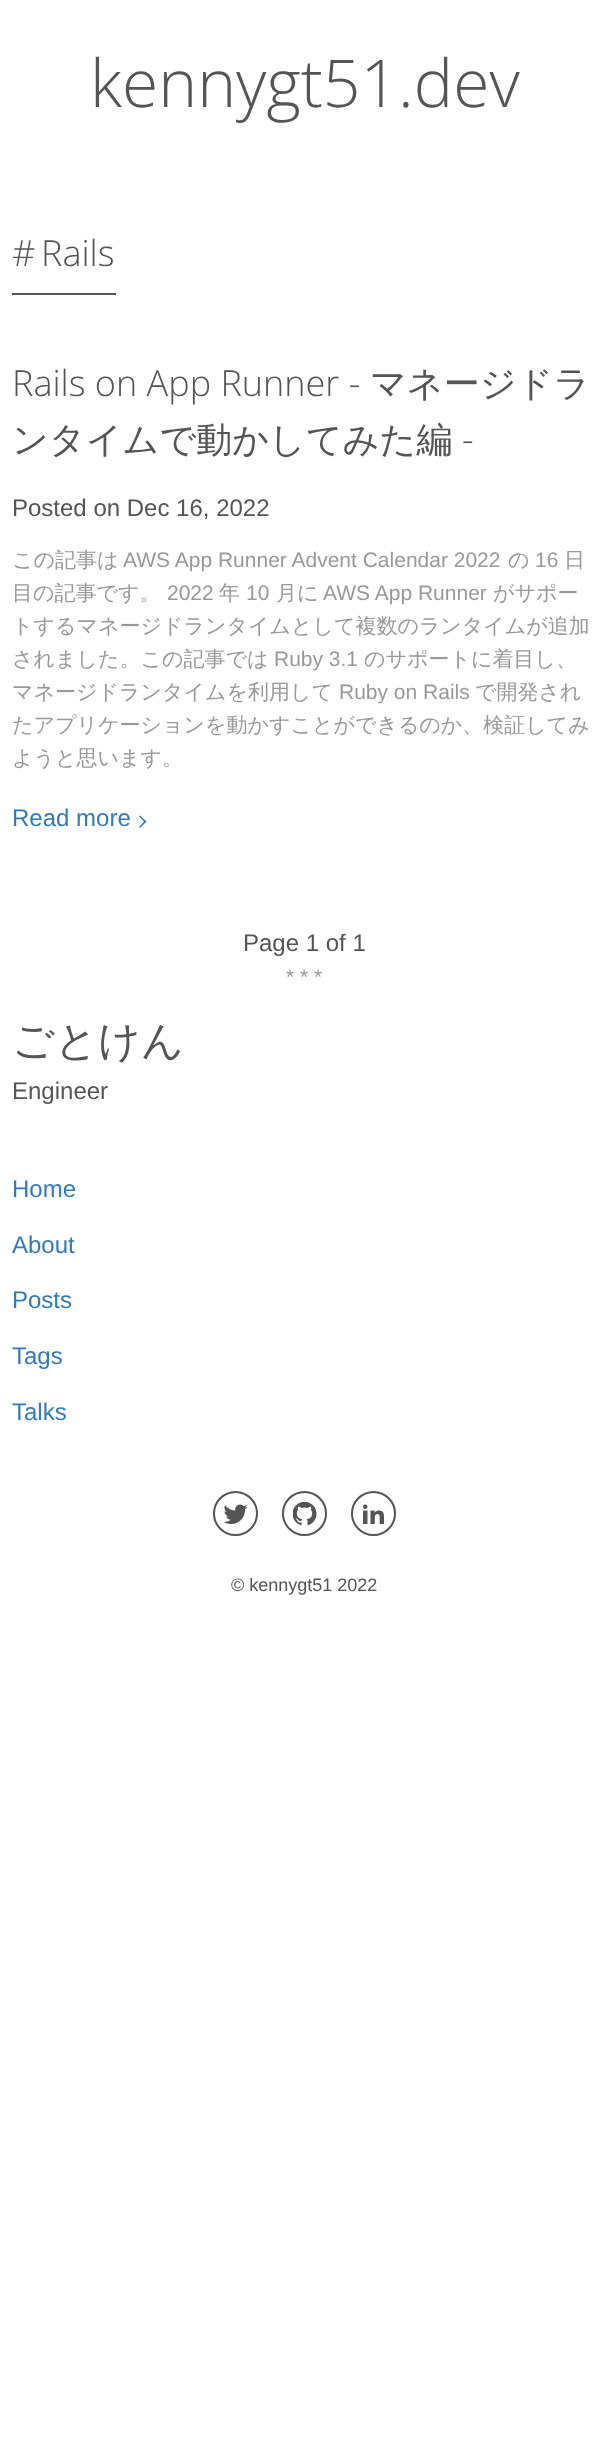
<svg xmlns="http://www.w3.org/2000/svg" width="608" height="2445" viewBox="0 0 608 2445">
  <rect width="100%" height="100%" fill="#fff"/>
  <path d="M12 293h104v2H12z" fill="#555"/>
  <path d="M140 815.5L146.5 821.5L145 822.5L139 816.5Z" fill="#337ab7"/>
  <path d="M145 820.5L146.5 821.5L140 828L139 827Z" fill="#337ab7"/>
  <circle cx="235.5" cy="1513.5" r="21.5" fill="none" stroke="#555" stroke-width="2"/>
  <image x="224" y="1504" width="24" height="20" href="img/1.png"/>
  <circle cx="304.5" cy="1513.5" r="21.5" fill="none" stroke="#555" stroke-width="2"/>
  <image x="293" y="1502" width="24" height="24" href="img/2.png"/>
  <circle cx="373.5" cy="1513.5" r="21.5" fill="none" stroke="#555" stroke-width="2"/>
  <image x="363" y="1504" width="21" height="20" href="img/3.png"/>
  <text x="90" y="107" font-family="Open Sans" font-size="66" font-weight="300" fill="#555">kennygt51.dev</text>
  <g font-family="Open Sans" font-size="36" font-weight="300" fill="#555">
    <text x="12" y="266">#</text>
    <text x="41" y="266">Rails</text>
    <text x="12" y="396">Rails on App Runner -</text>
  </g>
  <g font-family="WenQuanYi Zen Hei" font-size="36" font-weight="500" fill="#555">
    <text x="370" y="396">マネージドラ</text>
    <text x="12" y="452">ンタイムで動かしてみた編</text>
  </g>
  <text x="462" y="452" font-family="Open Sans" font-size="36" font-weight="300" fill="#555">-</text>
  <text x="12" y="516" font-family="Liberation Sans" font-size="24" fill="#555">Posted on Dec 16, 2022</text>
  <text x="12" y="567" font-family="WenQuanYi Zen Hei" font-size="21" font-weight="500" fill="#999">この記事は</text>
  <text x="123" y="567" font-family="Liberation Sans" font-size="21" fill="#999">AWS App Runner Advent Calendar 2022</text>
  <text x="508" y="567" font-family="WenQuanYi Zen Hei" font-size="21" font-weight="500" fill="#999">の</text>
  <text x="535" y="567" font-family="Liberation Sans" font-size="21" fill="#999">16</text>
  <g font-family="WenQuanYi Zen Hei" font-size="21" font-weight="500" fill="#999">
    <text x="564" y="567">日</text>
    <text x="12" y="600">目の記事です。</text>
  </g>
  <text x="167" y="600" font-family="Liberation Sans" font-size="21" fill="#999">2022</text>
  <text x="219" y="600" font-family="WenQuanYi Zen Hei" font-size="21" font-weight="500" fill="#999">年</text>
  <text x="246" y="600" font-family="Liberation Sans" font-size="21" fill="#999">10</text>
  <text x="276" y="600" font-family="WenQuanYi Zen Hei" font-size="21" font-weight="500" fill="#999">月に</text>
  <text x="323" y="600" font-family="Liberation Sans" font-size="21" fill="#999">AWS App Runner</text>
  <g font-family="WenQuanYi Zen Hei" font-size="21" font-weight="500" fill="#999">
    <text x="493" y="600">がサポー</text>
    <text x="12" y="633">トするマネージドランタイムとして複数のランタイムが追加</text>
    <text x="12" y="666">されました。この記事では</text>
  </g>
  <text x="274" y="666" font-family="Liberation Sans" font-size="21" fill="#999">Ruby 3.1</text>
  <g font-family="WenQuanYi Zen Hei" font-size="21" font-weight="500" fill="#999">
    <text x="364" y="666">のサポートに着目し、</text>
    <text x="12" y="699">マネージドランタイムを利用して</text>
  </g>
  <text x="339" y="699" font-family="Liberation Sans" font-size="21" fill="#999">Ruby on Rails</text>
  <g font-family="WenQuanYi Zen Hei" font-size="21" font-weight="500" fill="#999">
    <text x="475" y="699">で開発され</text>
    <text x="12" y="732">たアプリケーションを動かすことができるのか、検証してみ</text>
    <text x="12" y="765">ようと思います。</text>
  </g>
  <text x="12" y="826" font-family="Liberation Sans" font-size="24" fill="#337ab7">Read more</text>
  <text x="243" y="951" font-family="Liberation Sans" font-size="24" fill="#555">Page 1 of 1</text>
  <text x="286" y="984" font-family="Liberation Sans" font-size="21" fill="#999">* * *</text>
  <text x="12" y="1055" font-family="WenQuanYi Zen Hei" font-size="42" font-weight="500" fill="#555">ごとけん</text>
  <text x="12" y="1099" font-family="Liberation Sans" font-size="24" fill="#555">Engineer</text>
  <g font-family="Liberation Sans" font-size="24" fill="#337ab7">
    <text x="12" y="1197">Home</text>
    <text x="12" y="1253">About</text>
    <text x="12" y="1308">Posts</text>
    <text x="12" y="1364">Tags</text>
    <text x="12" y="1420">Talks</text>
  </g>
  <text x="231" y="1591" font-family="Liberation Sans" font-size="18" fill="#555">© kennygt51 2022</text>
</svg>
